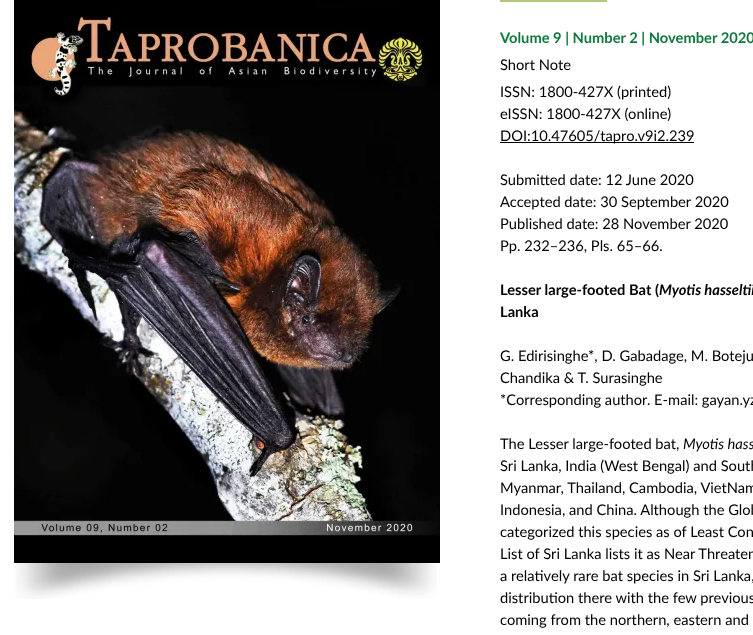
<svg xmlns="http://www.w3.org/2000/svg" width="753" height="635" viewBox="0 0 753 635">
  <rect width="100%" height="100%" fill="#fff"/>
  <image x="14" y="0" width="426" height="563" href="img/1.png"/>
  <image x="15" y="563" width="422" height="36" href="img/2.png"/>
  <path d="M500 0h107v2H500z" fill="#b3c87a"/>
  <path d="M500 142h194v1H500z" fill="#000"/>
  <text x="500" y="43" font-family="Lato" font-size="14.7" font-weight="bold" fill="#11793d">Volume 9 | Number 2 | November 2020</text>
  <g font-family="Lato" font-size="14.7" fill="#000">
    <text x="500" y="70">Short Note</text>
    <text x="500" y="97">ISSN: 1800-427X (printed)</text>
    <text x="500" y="119">eISSN: 1800-427X (online)</text>
    <text x="500" y="141">DOI:10.47605/tapro.v9i2.239</text>
    <text x="500" y="185">Submitted date: 12 June 2020</text>
    <text x="500" y="207">Accepted date: 30 September 2020</text>
    <text x="500" y="229">Published date: 28 November 2020</text>
    <text x="500" y="251">Pp. 232–236, Pls. 65–66.</text>
  </g>
  <text x="500" y="295" font-family="Lato" font-size="14.7" font-weight="bold" fill="#000">Lesser large-footed Bat (</text>
  <text x="659" y="295" font-family="Lato" font-size="14.7" font-weight="bold" font-style="italic" fill="#000">Myotis hasseltii</text>
  <text x="500" y="317" font-family="Lato" font-size="14.7" font-weight="bold" fill="#000">Lanka</text>
  <g font-family="Lato" font-size="14.7" fill="#000">
    <text x="500" y="361">G. Edirisinghe*, D. Gabadage, M. Boteju</text>
    <text x="500" y="383">Chandika &amp; T. Surasinghe</text>
    <text x="500" y="405">*Corresponding author. E-mail: gayan.yz</text>
    <text x="500" y="449">The Lesser large-footed bat,</text>
  </g>
  <text x="683" y="449" font-family="Lato" font-size="14.7" font-style="italic" fill="#000">Myotis hass</text>
  <g font-family="Lato" font-size="14.7" fill="#000">
    <text x="500" y="471">Sri Lanka, India (West Bengal) and South</text>
    <text x="500" y="493">Myanmar, Thailand, Cambodia, VietNam</text>
    <text x="500" y="515">Indonesia, and China. Although the Glob</text>
    <text x="500" y="537">categorized this species as of Least Con</text>
    <text x="500" y="559">List of Sri Lanka lists it as Near Threaten</text>
    <text x="500" y="581">a relatively rare bat species in Sri Lanka,</text>
    <text x="500" y="603">distribution there with the few previous</text>
    <text x="500" y="625">coming from the northern, eastern and</text>
  </g>
</svg>
